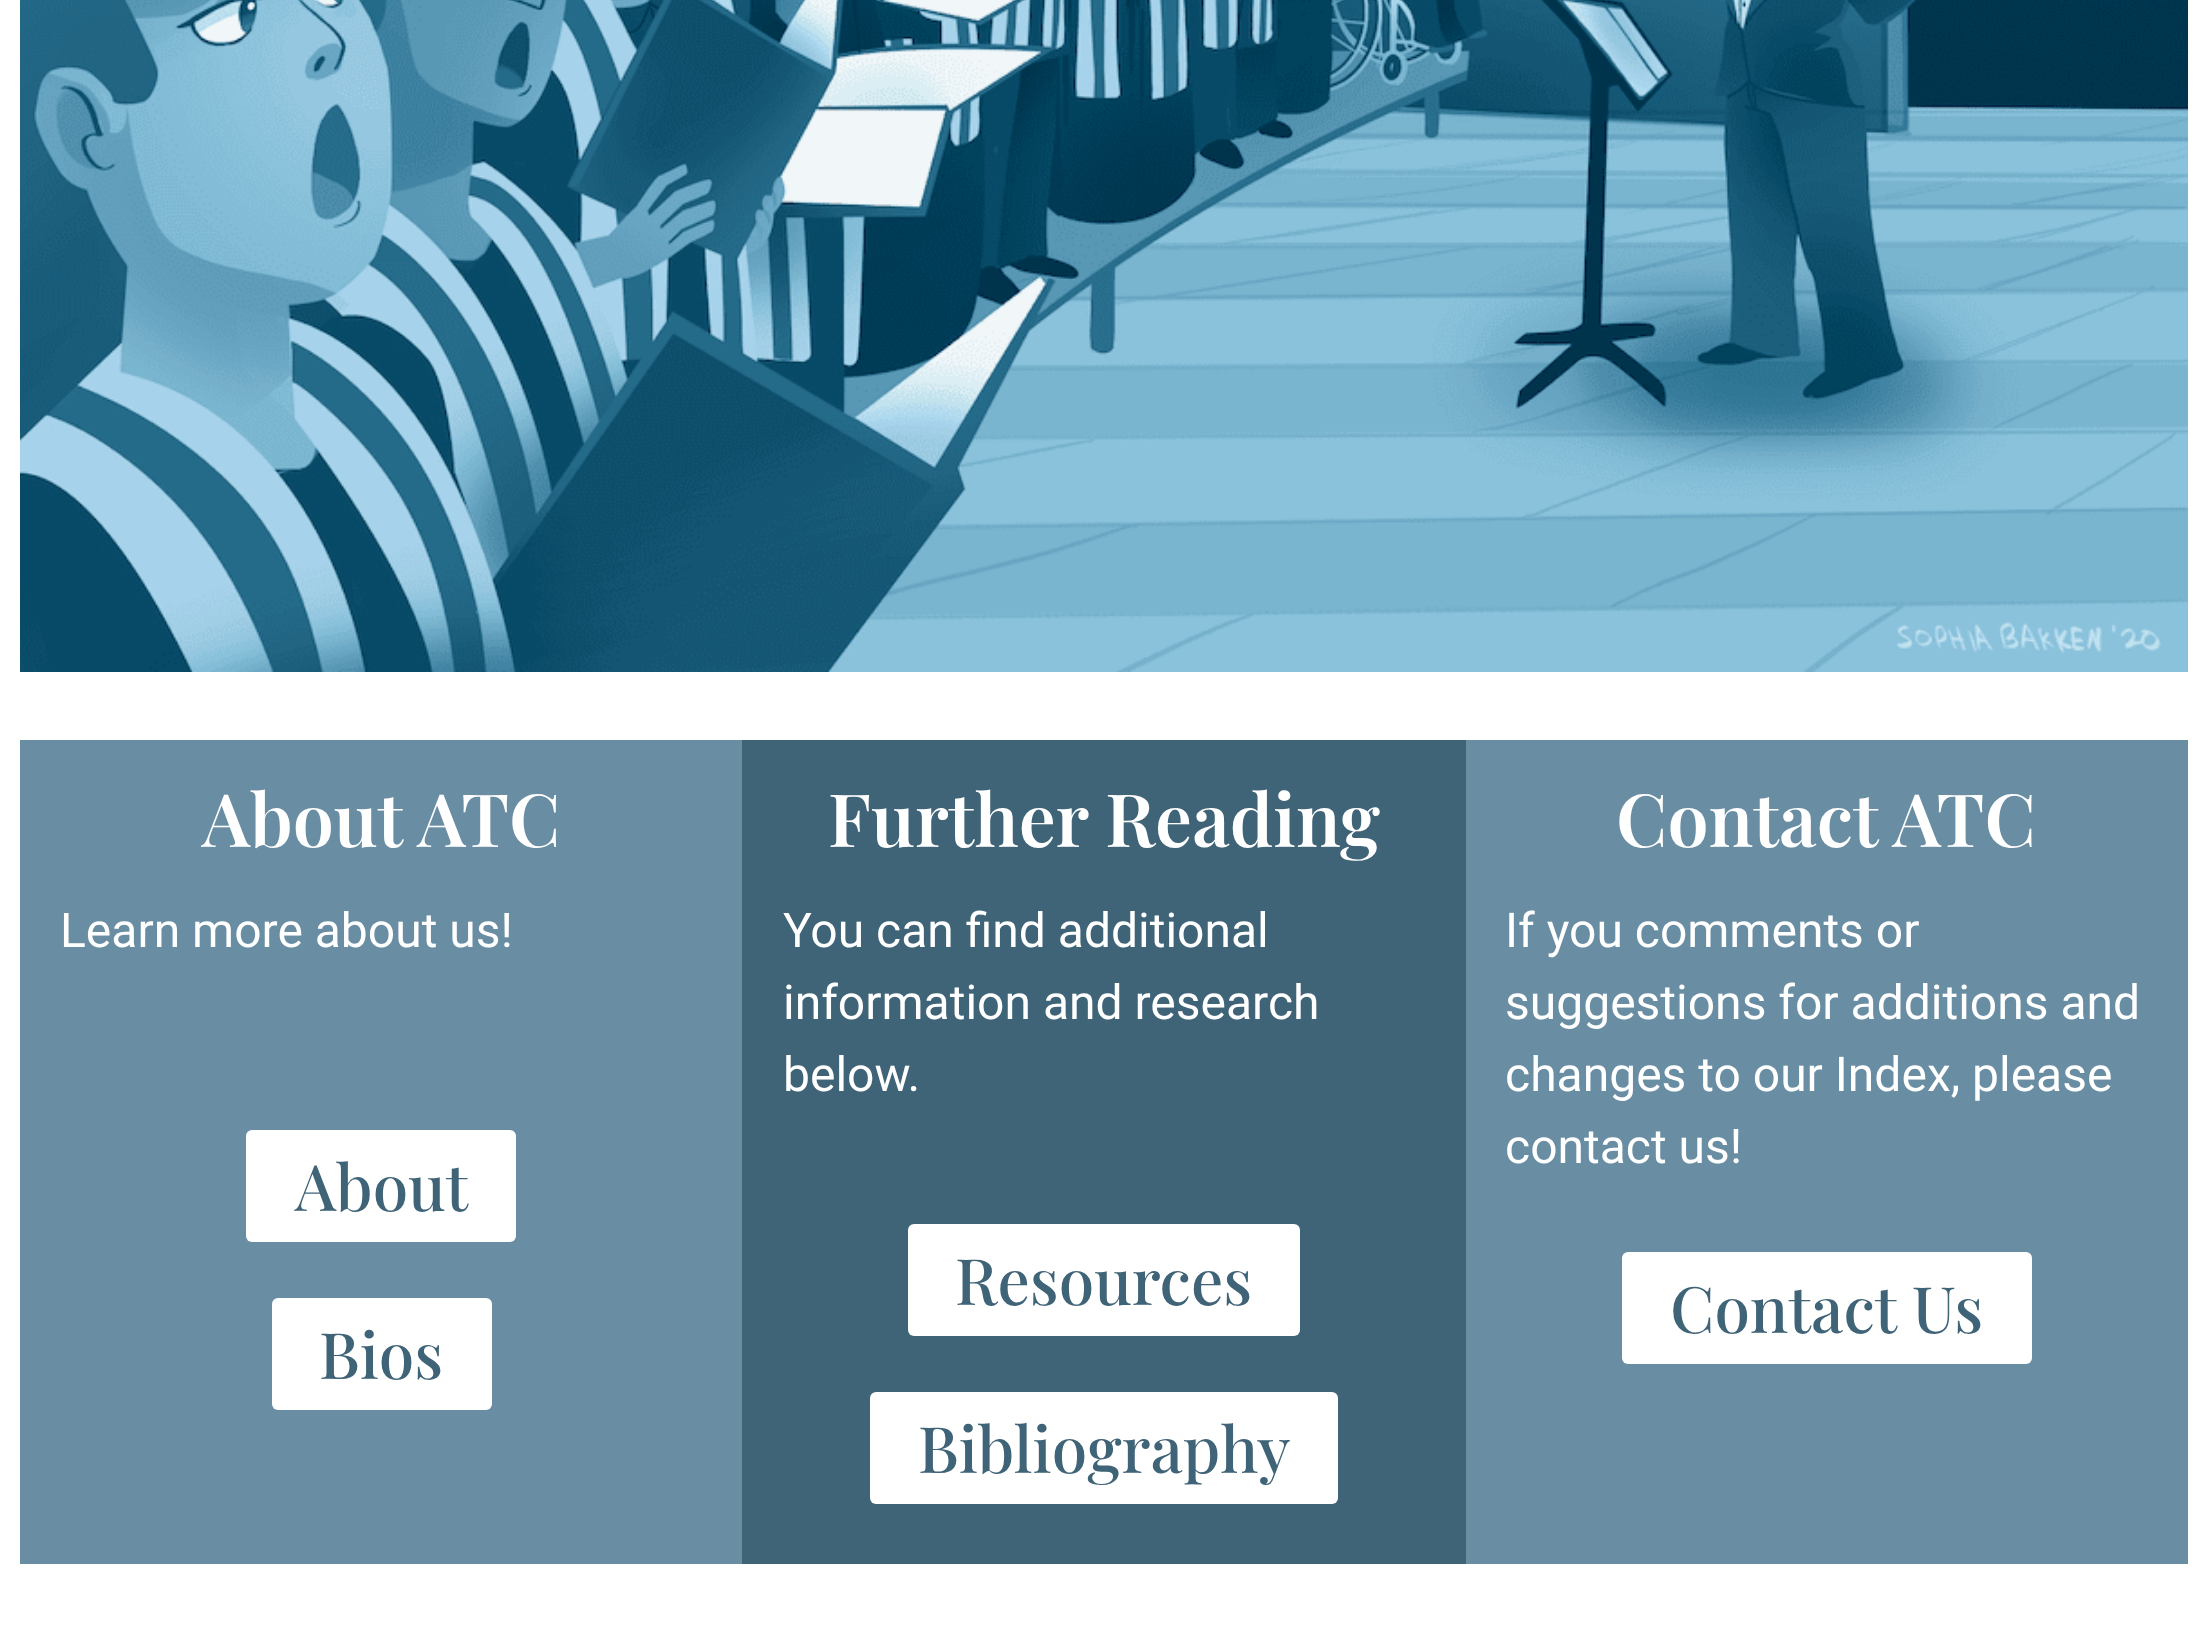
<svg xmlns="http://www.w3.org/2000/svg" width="2207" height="1648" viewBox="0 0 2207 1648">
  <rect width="100%" height="100%" fill="#fff"/>
  <image x="20" y="0" width="2168" height="672" href="img/1.png"/>
  <path d="M20 740h722v824H20z" fill="#698da2"/>
  <rect x="246" y="1130" width="270" height="112" rx="6" fill="#fff"/>
  <rect x="272" y="1298" width="220" height="112" rx="6" fill="#fff"/>
  <path d="M742 740h724v824H742z" fill="#3f6377"/>
  <rect x="908" y="1224" width="392" height="112" rx="6" fill="#fff"/>
  <rect x="870" y="1392" width="468" height="112" rx="6" fill="#fff"/>
  <path d="M1466 740h722v824H1466z" fill="#698da2"/>
  <rect x="1622" y="1252" width="410" height="112" rx="6" fill="#fff"/>
  <text x="202" y="847" font-family="Playfair Display" font-size="73.5" font-weight="600" fill="#fff">About ATC</text>
  <text x="60" y="947" font-family="Roboto" font-size="48" fill="#fff">Learn more about us!</text>
  <g font-family="Playfair Display" font-size="64" font-weight="500" fill="#3f6377">
    <text x="295" y="1211">About</text>
    <text x="319" y="1379">Bios</text>
  </g>
  <text x="828" y="847" font-family="Playfair Display" font-size="73.5" font-weight="600" fill="#fff">Further Reading</text>
  <g font-family="Roboto" font-size="48" fill="#fff">
    <text x="783" y="947">You can find additional</text>
    <text x="783" y="1019">information and research</text>
    <text x="783" y="1091">below.</text>
  </g>
  <g font-family="Playfair Display" font-size="64" font-weight="500" fill="#3f6377">
    <text x="955" y="1305">Resources</text>
    <text x="918" y="1473">Bibliography</text>
  </g>
  <text x="1616" y="847" font-family="Playfair Display" font-size="73.5" font-weight="600" fill="#fff">Contact ATC</text>
  <g font-family="Roboto" font-size="48" fill="#fff">
    <text x="1505" y="947">If you comments or</text>
    <text x="1505" y="1019">suggestions for additions and</text>
    <text x="1505" y="1091">changes to our Index, please</text>
    <text x="1505" y="1163">contact us!</text>
  </g>
  <text x="1670" y="1333" font-family="Playfair Display" font-size="64" font-weight="500" fill="#3f6377">Contact Us</text>
</svg>
